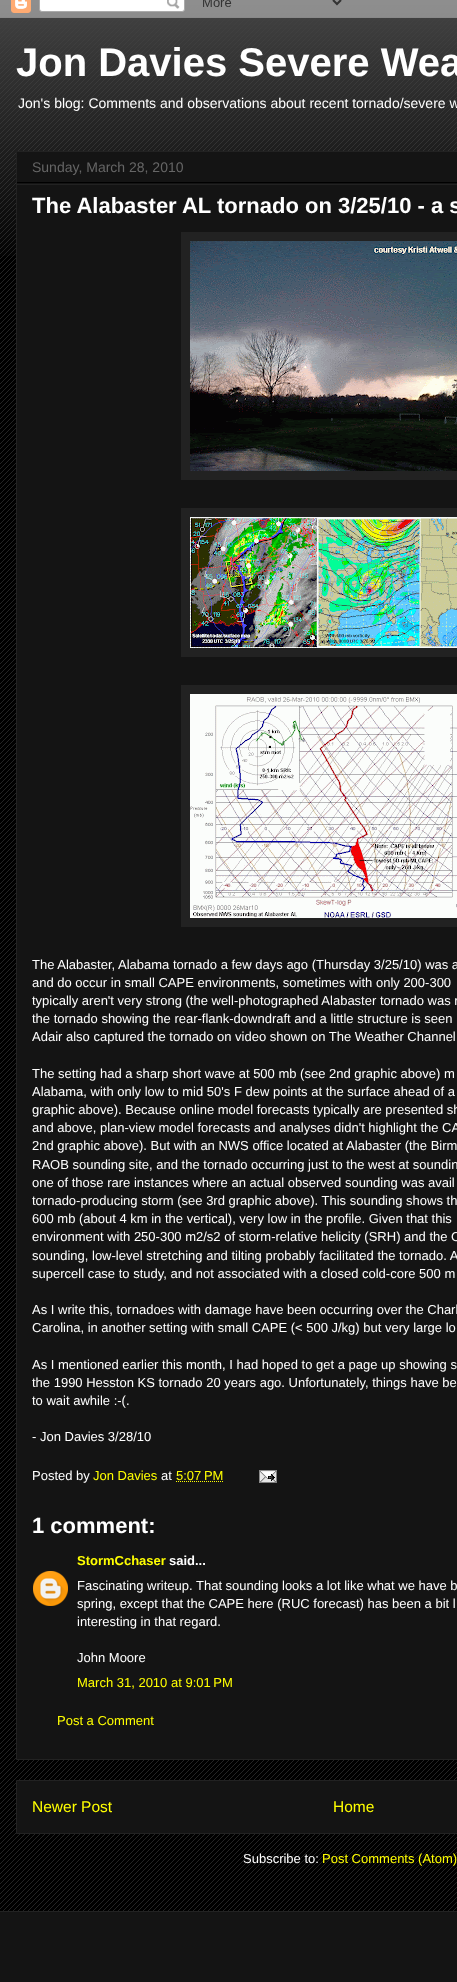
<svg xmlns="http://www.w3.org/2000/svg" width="457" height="1982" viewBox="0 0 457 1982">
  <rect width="100%" height="100%" fill="#000"/>
  <image x="0" y="1" width="457" height="1910" href="img/1.png"/>
  <image x="0" y="0" width="457" height="256" href="img/2.png"/>
  <image x="0" y="0" width="457" height="18" href="img/3.png"/>
  <path d="M16.5 151.5h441v1608H16.5z" fill="#141414" stroke="#222"/>
  <path d="M17 182h440v1H17z" fill="#000"/>
  <path d="M17 184h440v1H17z" fill="#222"/>
  <path d="M181 232h276v248H181z" fill="#222"/>
  <image x="190" y="241" width="267" height="230" href="img/4.png"/>
  <path d="M181 508h276v149H181z" fill="#222"/>
  <image x="190" y="517" width="267" height="131" href="img/5.png"/>
  <path d="M181 685h276v242H181z" fill="#222"/>
  <image x="190" y="694" width="267" height="224" href="img/6.png"/>
  <path d="M176 1481.5H223" fill="none" stroke="#ff0" stroke-dasharray="1 1"/>
  <image x="259" y="1470" width="18" height="13" href="img/7.png"/>
  <image x="33" y="1571" width="35" height="35" href="img/8.png"/>
  <path d="M16.5 1780.5h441v53H16.5z" fill="#141414" stroke="#222"/>
  <path d="M0 1912h457v70H0z" fill="#141414"/>
  <path d="M0 1911h457v1H0z" fill="#222"/>
  <text x="16" y="76" font-family="Liberation Sans" font-size="40" font-weight="bold" fill="#fff">Jon Davies Severe Wea</text>
  <text x="18" y="108" font-family="Liberation Sans" font-size="14" fill="#fff">Jon's blog: Comments and observations about recent tornado/severe w</text>
  <text x="32" y="172" font-family="Liberation Sans" font-size="14" fill="#666">Sunday, March 28, 2010</text>
  <text x="32" y="213" font-family="Liberation Sans" font-size="22" font-weight="bold" fill="#fff">The Alabaster AL tornado on 3/25/10 - a s</text>
  <g font-family="Liberation Sans" font-size="13" fill="#fff">
    <text x="32" y="969">The Alabaster, Alabama tornado a few days ago (Thursday 3/25/10) was a</text>
    <text x="32" y="987">and do occur in small CAPE environments, sometimes with only 200-300</text>
    <text x="32" y="1005">typically aren't very strong (the well-photographed Alabaster tornado was r</text>
    <text x="32" y="1023">the tornado showing the rear-flank-downdraft and a little structure is seen</text>
    <text x="32" y="1041">Adair also captured the tornado on video shown on The Weather Channel</text>
    <text x="32" y="1078">The setting had a sharp short wave at 500 mb (see 2nd graphic above) m</text>
    <text x="32" y="1096">Alabama, with only low to mid 50's F dew points at the surface ahead of a</text>
    <text x="32" y="1114">graphic above). Because online model forecasts typically are presented sh</text>
    <text x="32" y="1132">and above, plan-view model forecasts and analyses didn't highlight the CA</text>
    <text x="32" y="1150">2nd graphic above). But with an NWS office located at Alabaster (the Birm</text>
    <text x="32" y="1169">RAOB sounding site, and the tornado occurring just to the west at soundin</text>
    <text x="32" y="1187">one of those rare instances where an actual observed sounding was avail</text>
    <text x="32" y="1205">tornado-producing storm (see 3rd graphic above). This sounding shows th</text>
    <text x="32" y="1223">600 mb (about 4 km in the vertical), very low in the profile. Given that this</text>
    <text x="32" y="1241">environment with 250-300 m2/s2 of storm-relative helicity (SRH) and the C</text>
    <text x="32" y="1260">sounding, low-level stretching and tilting probably facilitated the tornado. A</text>
    <text x="32" y="1278">supercell case to study, and not associated with a closed cold-core 500 m</text>
    <text x="32" y="1314">As I write this, tornadoes with damage have been occurring over the Charl</text>
    <text x="32" y="1332">Carolina, in another setting with small CAPE (&lt; 500 J/kg) but very large lo</text>
    <text x="32" y="1369">As I mentioned earlier this month, I had hoped to get a page up showing s</text>
    <text x="32" y="1387">the 1990 Hesston KS tornado 20 years ago. Unfortunately, things have be</text>
    <text x="32" y="1405">to wait awhile :-(.</text>
    <text x="32" y="1441">- Jon Davies 3/28/10</text>
    <text x="32" y="1480">Posted by</text>
  </g>
  <text x="93" y="1480" font-family="Liberation Sans" font-size="13" fill="#ff0">Jon Davies</text>
  <text x="161" y="1480" font-family="Liberation Sans" font-size="13" fill="#fff">at</text>
  <text x="176" y="1480" font-family="Liberation Sans" font-size="13" fill="#ff0">5:07 PM</text>
  <text x="32" y="1533" font-family="Liberation Sans" font-size="22" font-weight="bold" fill="#fff">1 comment:</text>
  <text x="77" y="1565" font-family="Liberation Sans" font-size="13" font-weight="bold" fill="#ff0">StormCchaser</text>
  <text x="169" y="1565" font-family="Liberation Sans" font-size="13" font-weight="bold" fill="#fff">said...</text>
  <g font-family="Liberation Sans" font-size="13" fill="#fff">
    <text x="77" y="1590">Fascinating writeup. That sounding looks a lot like what we have b</text>
    <text x="77" y="1608">spring, except that the CAPE here (RUC forecast) has been a bit l</text>
    <text x="77" y="1626">interesting in that regard.</text>
    <text x="77" y="1662">John Moore</text>
  </g>
  <g font-family="Liberation Sans" font-size="13" fill="#ff0">
    <text x="77" y="1687">March 31, 2010 at 9:01 PM</text>
    <text x="57" y="1725">Post a Comment</text>
  </g>
  <g font-family="Liberation Sans" font-size="15.5" fill="#ff0">
    <text x="32" y="1812">Newer Post</text>
    <text x="333" y="1812">Home</text>
  </g>
  <text x="243" y="1863" font-family="Liberation Sans" font-size="13" fill="#fff">Subscribe to:</text>
  <text x="322" y="1863" font-family="Liberation Sans" font-size="13" fill="#ff0">Post Comments (Atom)</text>
</svg>
